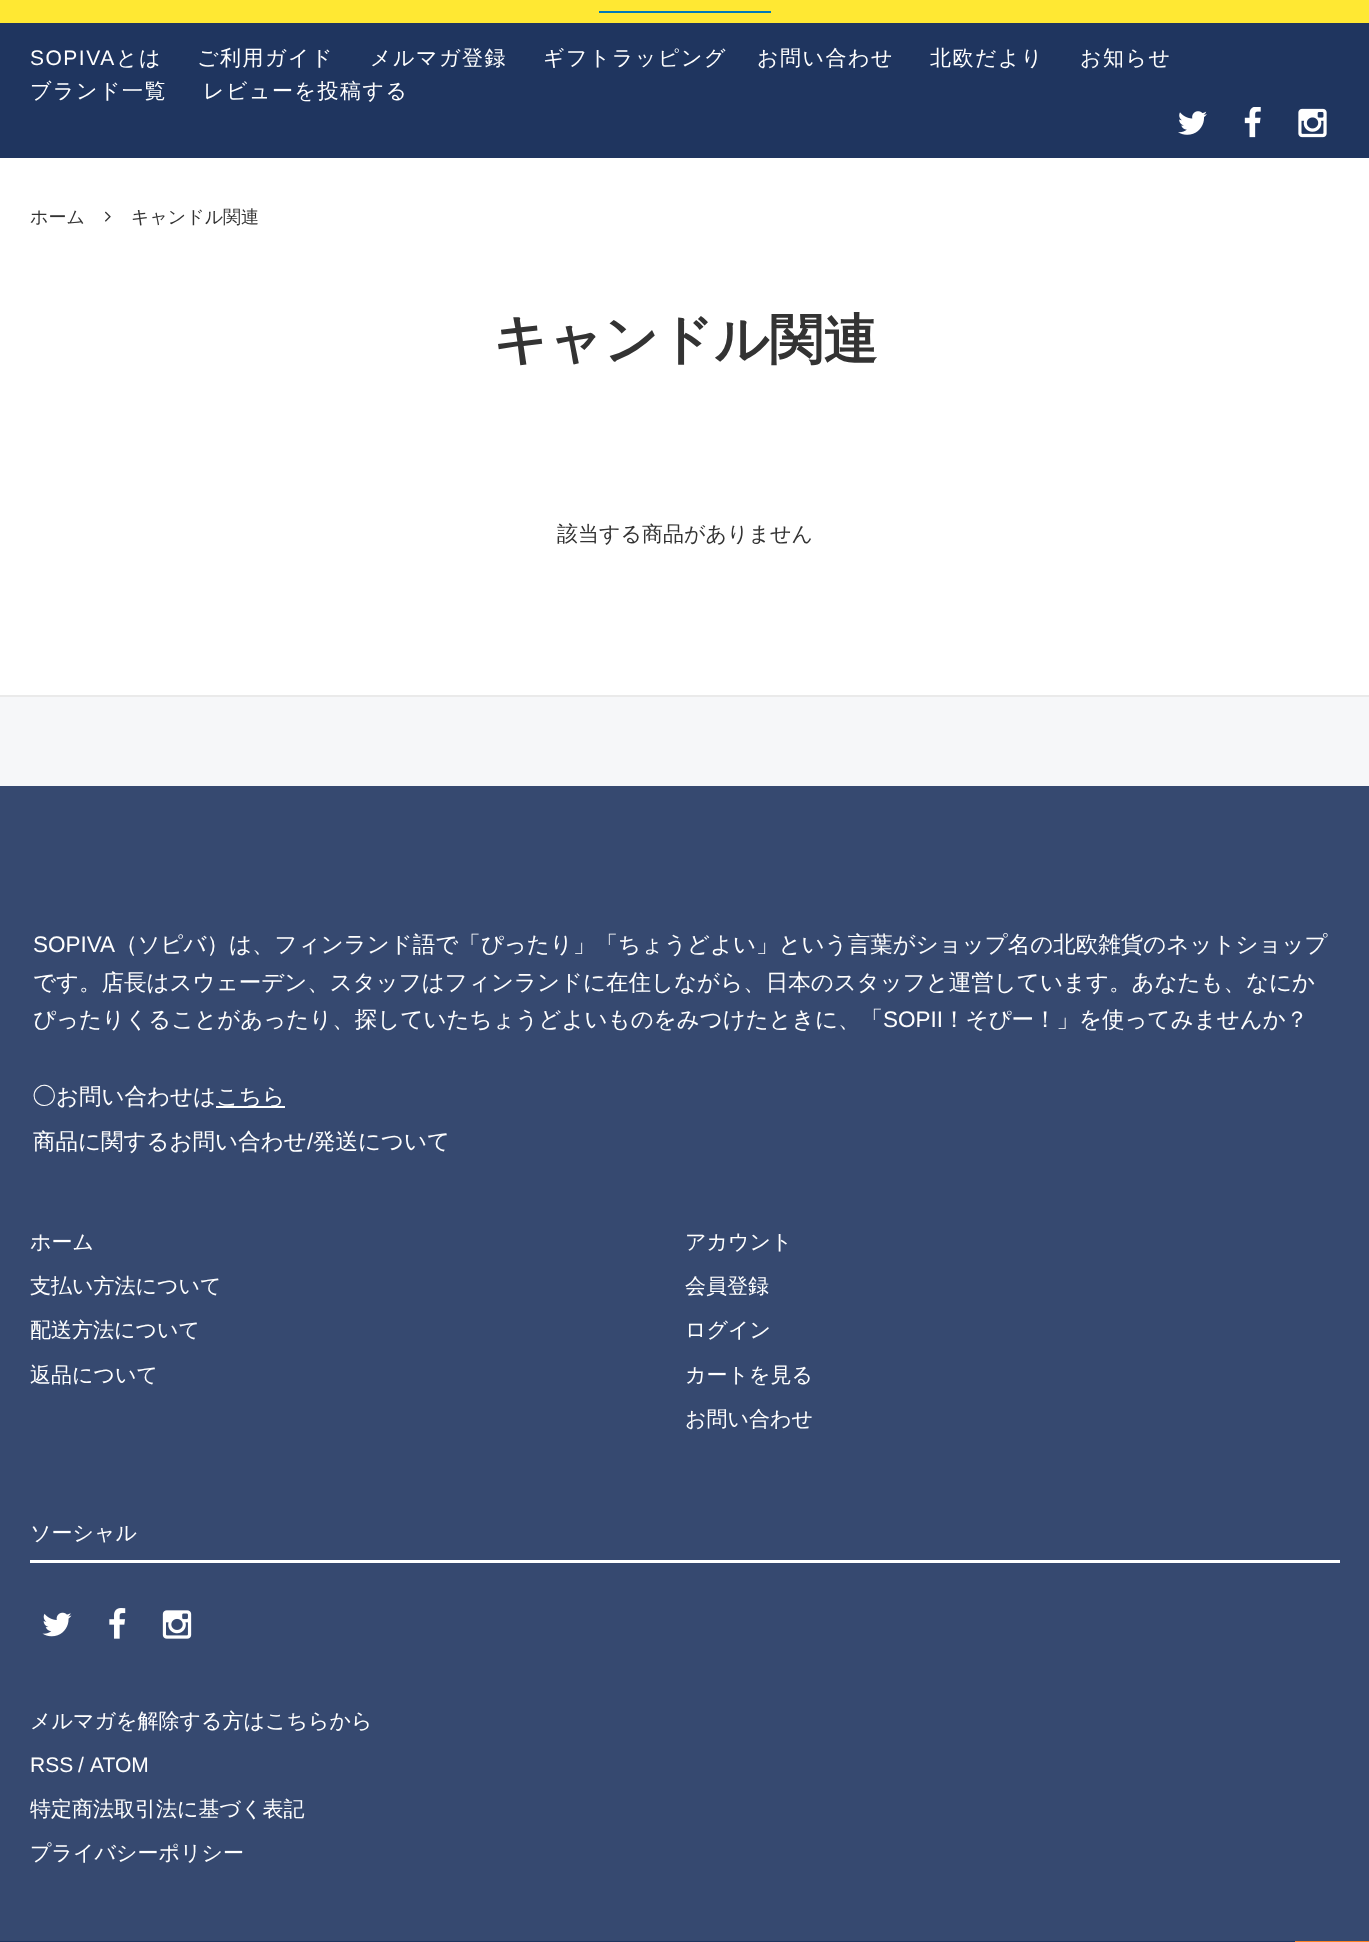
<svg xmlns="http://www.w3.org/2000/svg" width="1369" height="1942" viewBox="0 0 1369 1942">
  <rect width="100%" height="100%" fill="#fff"/>
  <path d="M0 0h1369v23H0z" fill="#ffe833"/>
  <path d="M599 11h172v2H599z" fill="#007ab8"/>
  <path d="M0 23h1369v135H0z" fill="#1f355f"/>
  <image x="1178" y="111" width="29" height="24" href="img/1.png"/>
  <image x="1244" y="107" width="17" height="31" href="img/2.png"/>
  <image x="1298" y="108" width="29" height="30" href="img/3.png"/>
  <image x="105" y="211" width="6" height="11" href="img/4.png"/>
  <path d="M0 1941h1295v1H0z" fill="#1f355f"/>
  <path d="M0 697h1369v89H0z" fill="#f6f7f9"/>
  <path d="M0 695h1369v2H0z" fill="#eaeaea"/>
  <path d="M0 786h1369v1155H0z" fill="#364970"/>
  <path d="M216 1106h69v2H216z" fill="#fff"/>
  <path d="M30 1560h1310v3H30z" fill="#fff"/>
  <image x="42" y="1612" width="30" height="25" href="img/5.png"/>
  <image x="109" y="1608" width="17" height="31" href="img/6.png"/>
  <image x="162" y="1610" width="30" height="29" href="img/7.png"/>
  <path d="M1295 1941h74v1H1295z" fill="#fd7f23"/>
  <text x="30" y="65" font-family="Liberation Sans" font-size="21" letter-spacing="1.5" fill="#fff">SOPIVA</text>
  <g font-family="WenQuanYi Zen Hei" font-size="21" font-weight="500" letter-spacing="1.5" fill="#fff">
    <text x="116" y="65">とは</text>
    <text x="197" y="65">ご利用ガイド</text>
    <text x="370" y="65">メルマガ登録</text>
    <text x="543" y="65">ギフトラッピング</text>
    <text x="757" y="65">お問い合わせ</text>
    <text x="930" y="65">北欧だより</text>
    <text x="1080" y="65">お知らせ</text>
    <text x="30" y="98">ブランド一覧</text>
    <text x="203" y="98">レビューを投稿する</text>
  </g>
  <g font-family="WenQuanYi Zen Hei" font-size="18" font-weight="500" fill="#333">
    <text x="30" y="223">ホーム</text>
    <text x="131" y="223">キャンドル関連</text>
  </g>
  <text x="493" y="358" font-family="WenQuanYi Zen Hei" font-size="54" font-weight="bold" fill="#333">キャンドル関連</text>
  <text x="557" y="541" font-family="WenQuanYi Zen Hei" font-size="21" font-weight="500" fill="#333">該当する商品がありません</text>
  <text x="33" y="952" font-family="Liberation Sans" font-size="22.5" fill="#fff">SOPIVA</text>
  <g font-family="WenQuanYi Zen Hei" font-size="22.5" font-weight="500" fill="#fff">
    <text x="115" y="952">（ソピバ）は、フィンランド語で「ぴったり」「ちょうどよい」という言葉がショップ名の北欧雑貨のネットショップ</text>
    <text x="33" y="990">です。店長はスウェーデン、スタッフはフィンランドに在住しながら、日本のスタッフと運営しています。あなたも、なにか</text>
    <text x="33" y="1027">ぴったりくることがあったり、探していたちょうどよいものをみつけたときに、「</text>
  </g>
  <text x="883" y="1027" font-family="Liberation Sans" font-size="22.5" fill="#fff">SOPII</text>
  <text x="943" y="1027" font-family="WenQuanYi Zen Hei" font-size="22.5" font-weight="500" fill="#fff">！そぴー！」を使ってみませんか？</text>
  <text x="33" y="1104" font-family="IPAPGothic" font-size="22.5" fill="#fff">◯</text>
  <g font-family="WenQuanYi Zen Hei" font-size="22.5" font-weight="500" fill="#fff">
    <text x="56" y="1104">お問い合わせは</text>
    <text x="216" y="1104">こちら</text>
    <text x="33" y="1149">商品に関するお問い合わせ</text>
  </g>
  <text x="307" y="1149" font-family="Liberation Sans" font-size="22.5" fill="#fff">/</text>
  <text x="313" y="1149" font-family="WenQuanYi Zen Hei" font-size="22.5" font-weight="500" fill="#fff">発送について</text>
  <g font-family="WenQuanYi Zen Hei" font-size="21" font-weight="500" fill="#fff">
    <text x="30" y="1249">ホーム</text>
    <text x="30" y="1293">支払い方法について</text>
    <text x="30" y="1337">配送方法について</text>
    <text x="30" y="1382">返品について</text>
    <text x="685" y="1249">アカウント</text>
    <text x="685" y="1293">会員登録</text>
    <text x="685" y="1337">ログイン</text>
    <text x="685" y="1382">カートを見る</text>
    <text x="685" y="1426">お問い合わせ</text>
    <text x="30" y="1540">ソーシャル</text>
    <text x="30" y="1728">メルマガを解除する方はこちらから</text>
  </g>
  <g font-family="Liberation Sans" font-size="21" fill="#fff">
    <text x="30" y="1772">RSS</text>
    <text x="78" y="1772">/</text>
    <text x="90" y="1772">ATOM</text>
  </g>
  <g font-family="WenQuanYi Zen Hei" font-size="21" font-weight="500" fill="#fff">
    <text x="30" y="1816">特定商法取引法に基づく表記</text>
    <text x="30" y="1860">プライバシーポリシー</text>
  </g>
</svg>
